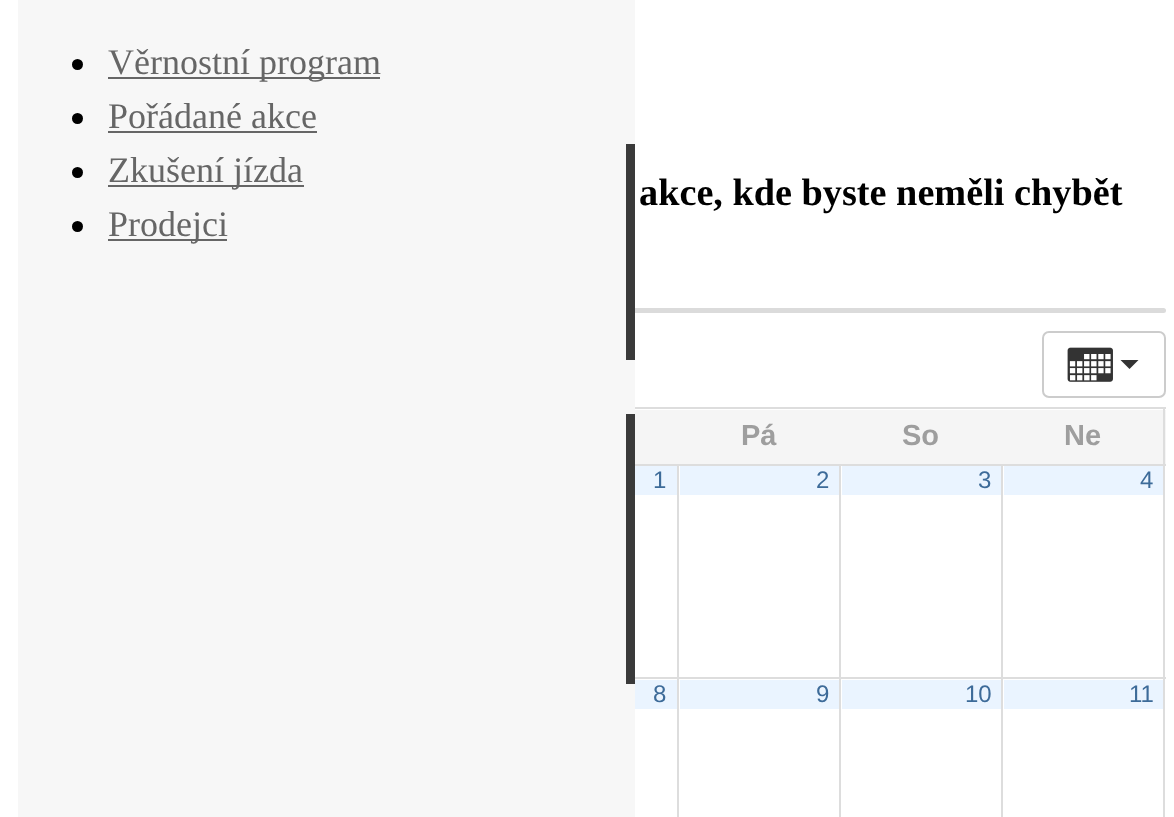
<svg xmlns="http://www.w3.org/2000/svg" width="1174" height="817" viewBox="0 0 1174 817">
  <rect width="100%" height="100%" fill="#fff"/>
  <rect x="27" y="308" width="1139" height="5" rx="2.5" fill="#dbdbdb"/>
  <path d="M18 0h617v817H18z" fill="#f7f7f7"/>
  <path d="M626 144h9v216H626z" fill="#3a3a3a"/>
  <path d="M626 414h9v270H626z" fill="#3a3a3a"/>
  <circle cx="77.5" cy="64.5" r="5.5" fill="#000"/>
  <path d="M108 77h272v2H108z" fill="#666"/>
  <circle cx="77.5" cy="118.5" r="5.5" fill="#000"/>
  <path d="M108 131h209v2H108z" fill="#666"/>
  <circle cx="77.5" cy="172.5" r="5.5" fill="#000"/>
  <path d="M108 185h196v2H108z" fill="#666"/>
  <circle cx="77.5" cy="226.5" r="5.5" fill="#000"/>
  <path d="M108 239h119v2H108z" fill="#666"/>
  <rect x="1043" y="332" width="122" height="65" rx="6" fill="none" stroke="#ccc" stroke-width="2"/>
  <image x="1067" y="347" width="46" height="35" href="img/1.png"/>
  <path d="M1120.5 360H1138.5L1129.5 369Z" fill="#333"/>
  <path d="M635 407h531v2H635z" fill="#ddd"/>
  <path d="M635 410h531v54H635z" fill="#f5f5f5"/>
  <path d="M1163 407h2v410H1163z" fill="#ddd"/>
  <path d="M1001 464h165v2H1001z" fill="#ddd"/>
  <path d="M1001 677h165v2H1001z" fill="#ddd"/>
  <path d="M1001 677h2v140H1001z" fill="#ddd"/>
  <path d="M839 677h165v2H839z" fill="#ddd"/>
  <path d="M1001 464h2v216H1001z" fill="#ddd"/>
  <path d="M839 464h165v2H839z" fill="#ddd"/>
  <path d="M839 677h2v140H839z" fill="#ddd"/>
  <path d="M677 677h165v2H677z" fill="#ddd"/>
  <path d="M839 464h2v216H839z" fill="#ddd"/>
  <path d="M677 464h165v2H677z" fill="#ddd"/>
  <path d="M677 677h2v140H677z" fill="#ddd"/>
  <path d="M635 677h45v2H635z" fill="#ddd"/>
  <path d="M677 464h2v216H677z" fill="#ddd"/>
  <path d="M635 464h45v2H635z" fill="#ddd"/>
  <path d="M635 466h42v29H635z" fill="#eaf4ff"/>
  <path d="M680 466h159v29H680z" fill="#eaf4ff"/>
  <path d="M842 466h159v29H842z" fill="#eaf4ff"/>
  <path d="M1004 466h159v29H1004z" fill="#eaf4ff"/>
  <path d="M635 680h42v29H635z" fill="#eaf4ff"/>
  <path d="M680 680h159v29H680z" fill="#eaf4ff"/>
  <path d="M842 680h159v29H842z" fill="#eaf4ff"/>
  <path d="M1004 680h159v29H1004z" fill="#eaf4ff"/>
  <g font-family="Liberation Serif" font-size="36" fill="#666">
    <text x="108" y="74">Věrnostní program</text>
    <text x="108" y="128">Pořádané akce</text>
    <text x="108" y="182">Zkušení jízda</text>
    <text x="108" y="236">Prodejci</text>
  </g>
  <text x="639" y="205" font-family="Liberation Serif" font-size="38.25" font-weight="bold" fill="#000">akce, kde byste neměli chybět</text>
  <g font-family="Liberation Sans" font-size="29" font-weight="bold" fill="#9e9e9e">
    <text x="741" y="445">Pá</text>
    <text x="902" y="445">So</text>
    <text x="1064" y="445">Ne</text>
  </g>
  <g font-family="Liberation Sans" font-size="24" fill="#3d6b99">
    <text x="653" y="488">1</text>
    <text x="816" y="488">2</text>
    <text x="978" y="488">3</text>
    <text x="1140" y="488">4</text>
    <text x="653" y="702">8</text>
    <text x="816" y="702">9</text>
    <text x="965" y="702">10</text>
    <text x="1129" y="702">11</text>
  </g>
</svg>
